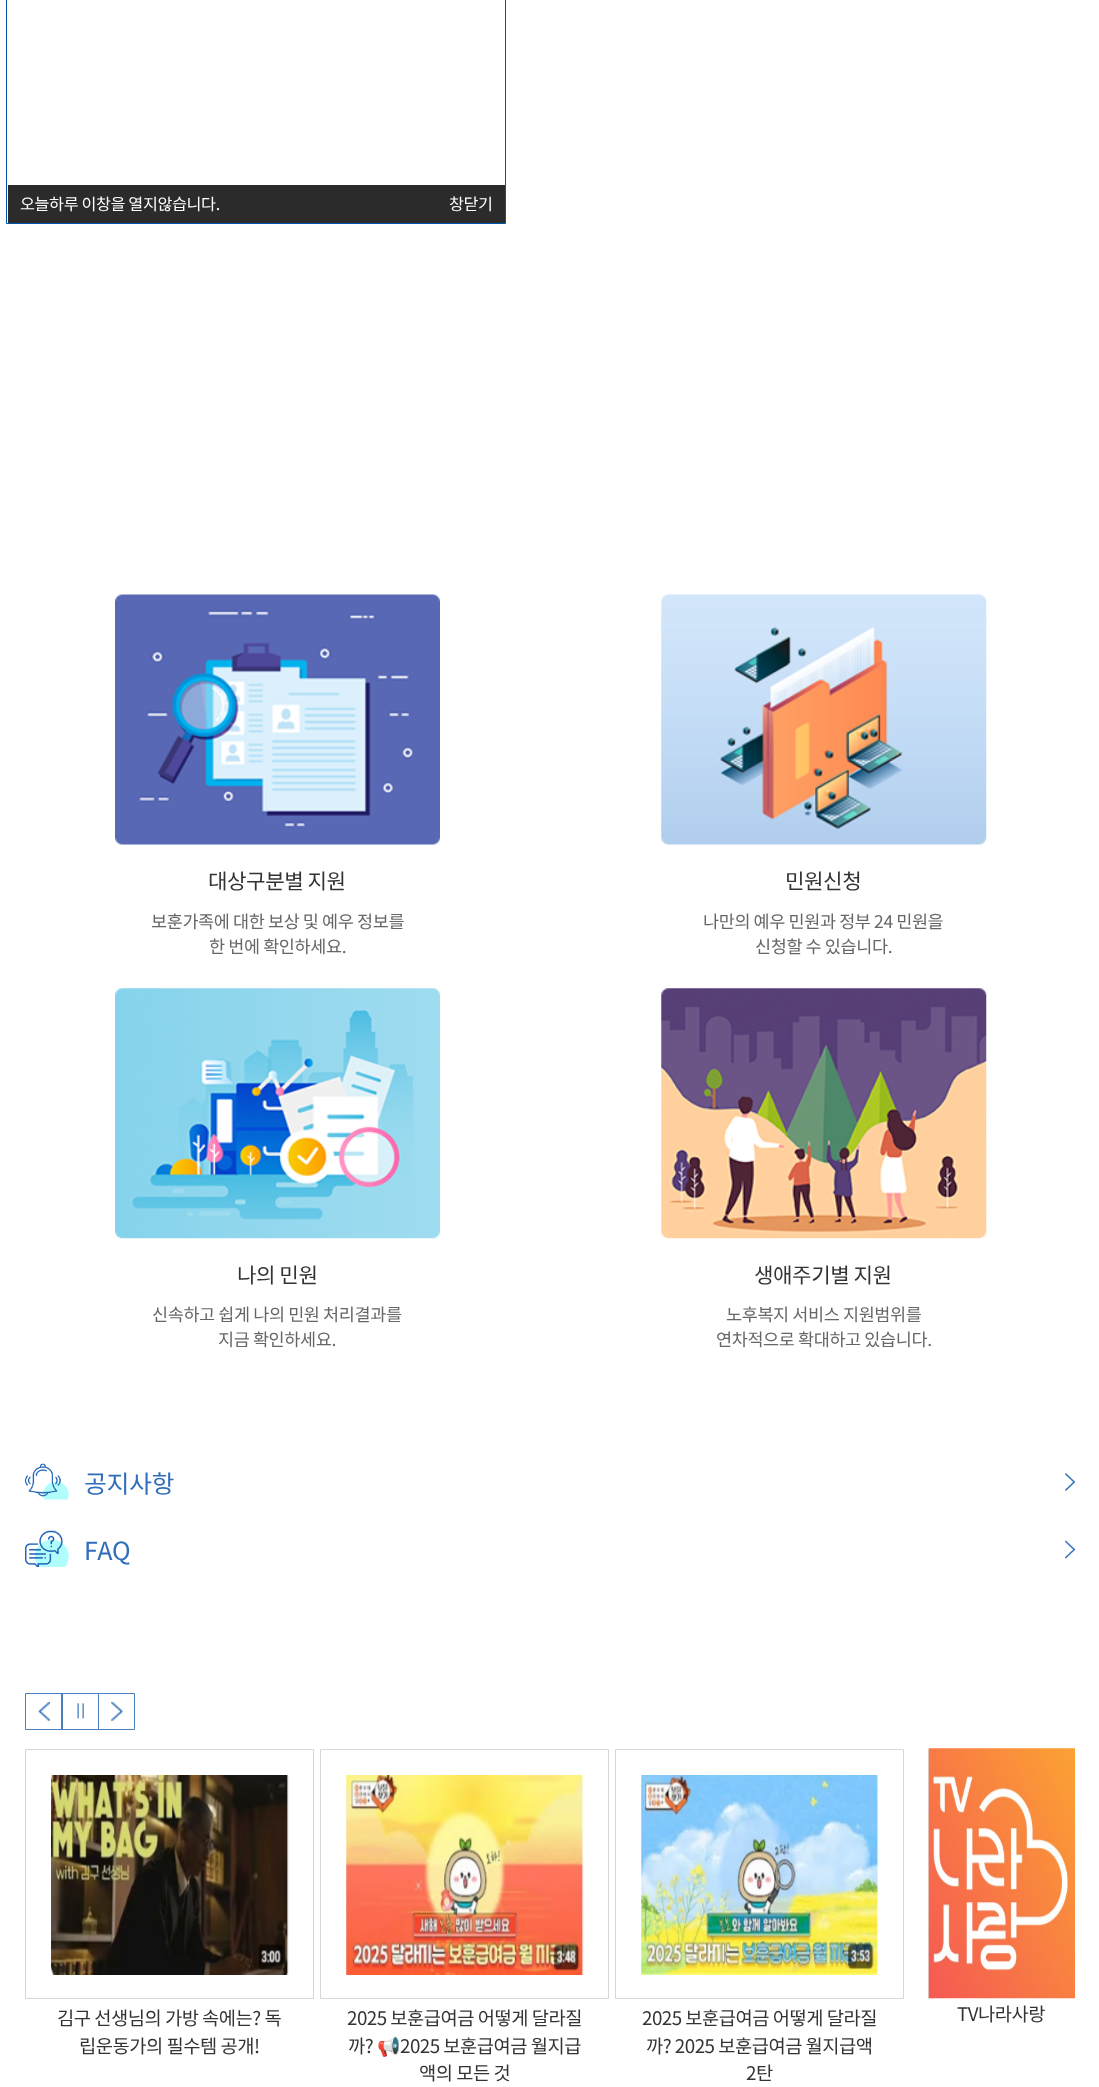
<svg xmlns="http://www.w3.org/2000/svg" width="1099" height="2087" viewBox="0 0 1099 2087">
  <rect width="100%" height="100%" fill="#fff"/>
  <path d="M6.5 -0.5h499v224H6.5z" fill="none" stroke="#0054af"/>
  <path d="M8 185h497v38H8z" fill="#2b2b2b"/>
  <image x="115" y="594" width="325" height="251" href="img/1.png"/>
  <image x="661" y="594" width="326" height="251" href="img/2.png"/>
  <image x="115" y="988" width="325" height="251" href="img/3.png"/>
  <image x="661" y="988" width="326" height="251" href="img/4.png"/>
  <image x="25" y="1463" width="44" height="37" href="img/5.png"/>
  <image x="1065" y="1473" width="10" height="18" href="img/6.png"/>
  <image x="25" y="1530" width="44" height="37" href="img/7.png"/>
  <image x="1065" y="1540" width="10" height="19" href="img/8.png"/>
  <image x="77" y="1703" width="7" height="16" href="img/9.png"/>
  <image x="38" y="1702" width="12" height="19" href="img/10.png"/>
  <path d="M25.5 1693.5h37v36H25.5z" fill="none" stroke="#477ebb"/>
  <image x="111" y="1702" width="12" height="19" href="img/11.png"/>
  <path d="M98.5 1693.5h36v36H98.5z" fill="none" stroke="#477ebb"/>
  <path d="M61.5 1693.5h37v36H61.5z" fill="none" stroke="#477ebb"/>
  <path d="M25.5 1749.5h288v249H25.5z" fill="none" stroke="#d4d8d9"/>
  <image x="51" y="1775" width="238" height="200" href="img/12.png"/>
  <path d="M320.5 1749.5h288v249H320.5z" fill="none" stroke="#d4d8d9"/>
  <image x="346" y="1775" width="238" height="200" href="img/13.png"/>
  <path d="M615.5 1749.5h288v249H615.5z" fill="none" stroke="#d4d8d9"/>
  <image x="641" y="1775" width="238" height="200" href="img/14.png"/>
  <path d="M928 1749h1v250H928z" fill="#ddd"/>
  <image x="928" y="1748" width="147" height="251" href="img/15.png"/>
  <g font-family="Noto Sans KR" font-size="16.25" letter-spacing="-0.4" fill="#fff">
    <text x="20" y="210">오늘하루 이창을 열지않습니다.</text>
    <text x="449" y="210">창닫기</text>
  </g>
  <text x="208" y="889" font-family="Noto Sans KR" font-size="21.25" letter-spacing="-0.5" fill="#333">대상구분별 지원</text>
  <g font-family="Noto Sans KR" font-size="17.5" letter-spacing="-0.4" fill="#666">
    <text x="151" y="928">보훈가족에 대한 보상 및 예우 정보를</text>
    <text x="209" y="953">한 번에 확인하세요.</text>
  </g>
  <text x="785" y="889" font-family="Noto Sans KR" font-size="21.25" letter-spacing="-0.5" fill="#333">민원신청</text>
  <g font-family="Noto Sans KR" font-size="17.5" letter-spacing="-0.4" fill="#666">
    <text x="703" y="928">나만의 예우 민원과 정부 24 민원을</text>
    <text x="755" y="953">신청할 수 있습니다.</text>
  </g>
  <text x="237" y="1283" font-family="Noto Sans KR" font-size="21.25" letter-spacing="-0.5" fill="#333">나의 민원</text>
  <g font-family="Noto Sans KR" font-size="17.5" letter-spacing="-0.4" fill="#666">
    <text x="152" y="1321">신속하고 쉽게 나의 민원 처리결과를</text>
    <text x="218" y="1346">지금 확인하세요.</text>
  </g>
  <text x="754" y="1283" font-family="Noto Sans KR" font-size="21.25" letter-spacing="-0.5" fill="#333">생애주기별 지원</text>
  <g font-family="Noto Sans KR" font-size="17.5" letter-spacing="-0.4" fill="#666">
    <text x="726" y="1321">노후복지 서비스 지원범위를</text>
    <text x="716" y="1346">연차적으로 확대하고 있습니다.</text>
  </g>
  <g font-family="Noto Sans KR" font-size="25" letter-spacing="-0.5" fill="#306ebb">
    <text x="84" y="1493">공지사항</text>
    <text x="84" y="1560">FAQ</text>
  </g>
  <g font-family="Noto Sans KR" font-size="18.75" letter-spacing="-0.5" fill="#333">
    <text x="57" y="2025">김구 선생님의 가방 속에는? 독</text>
    <text x="79" y="2053">립운동가의 필수템 공개!</text>
    <text x="347" y="2025">2025 보훈급여금 어떻게 달라질</text>
    <text x="348" y="2053">까?</text>
  </g>
  <text x="377" y="2053" font-family="Noto Color Emoji" font-size="18.75" letter-spacing="-0.5" fill="#333">📢</text>
  <g font-family="Noto Sans KR" font-size="18.75" letter-spacing="-0.5" fill="#333">
    <text x="400" y="2053">2025 보훈급여금 월지급</text>
    <text x="419" y="2080">액의 모든 것</text>
    <text x="642" y="2025">2025 보훈급여금 어떻게 달라질</text>
    <text x="646" y="2053">까? 2025 보훈급여금 월지급액</text>
    <text x="746" y="2080">2탄</text>
    <text x="957" y="2021">TV나라사랑</text>
  </g>
</svg>
